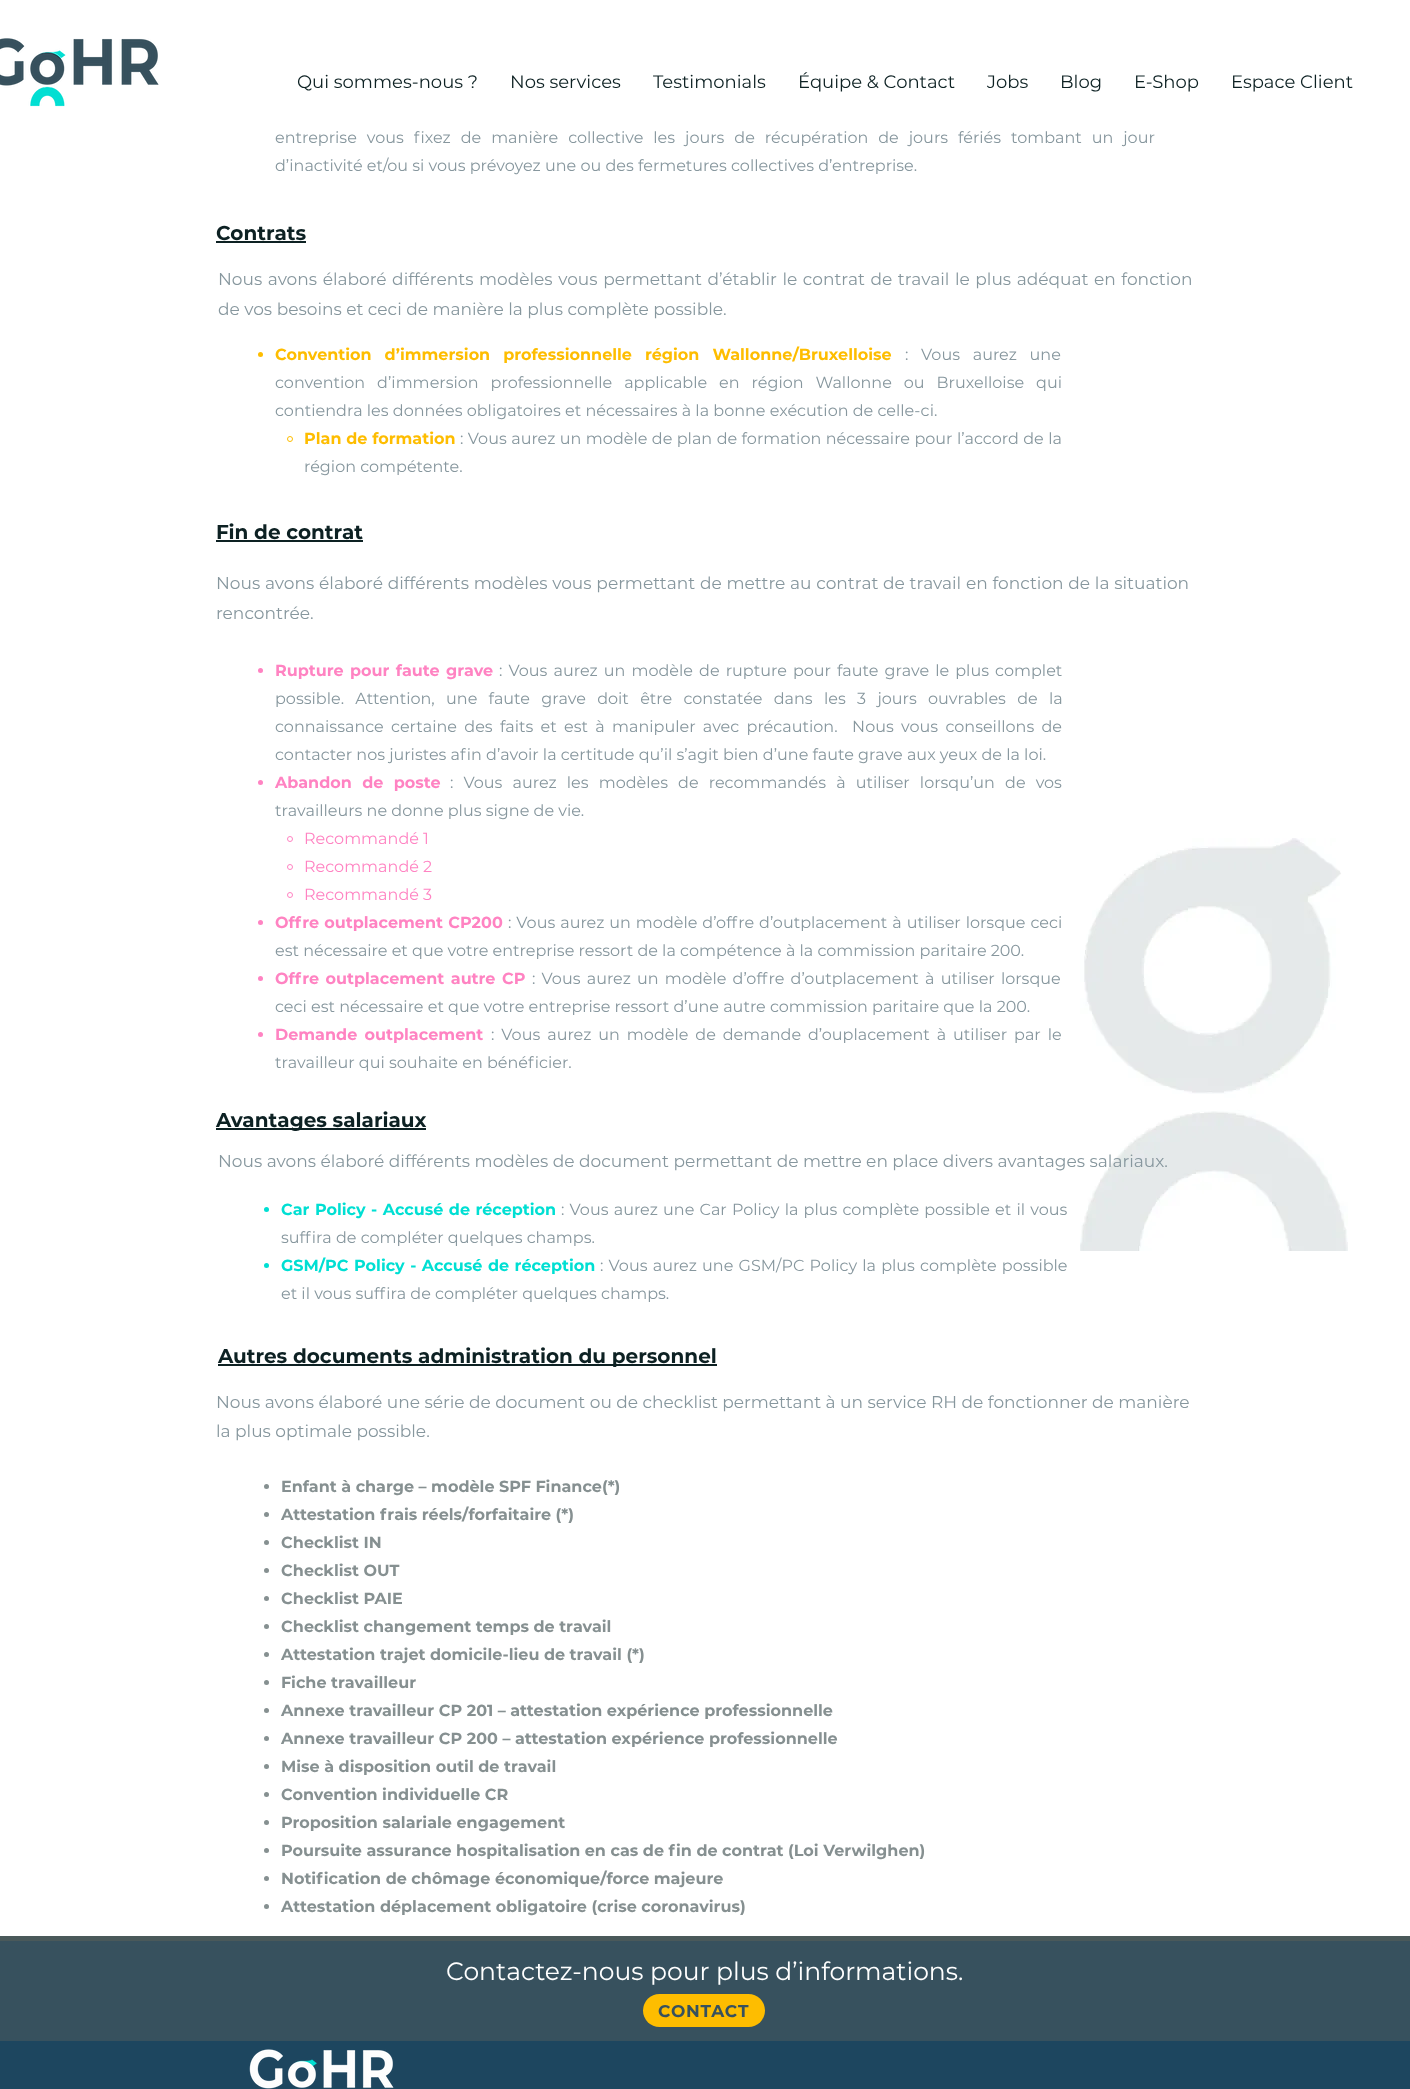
<svg xmlns="http://www.w3.org/2000/svg" width="1410" height="2089" viewBox="0 0 1410 2089">
  <rect width="100%" height="100%" fill="#fff"/>
  <image x="0" y="38" width="159" height="69" href="img/1.png"/>
  <path d="M216 241h90v2H216z" fill="#0d2123"/>
  <circle cx="260.5" cy="354.5" r="2.5" fill="#febd00"/>
  <circle cx="290" cy="439" r="2.5" fill="none" stroke="#febd00"/>
  <path d="M216 540h147v2H216z" fill="#0d2123"/>
  <circle cx="260.5" cy="670.5" r="2.5" fill="#ff83c2"/>
  <circle cx="260.5" cy="782.5" r="2.5" fill="#ff83c2"/>
  <circle cx="290" cy="839" r="2.5" fill="none" stroke="#ff83c2"/>
  <circle cx="290" cy="867" r="2.5" fill="none" stroke="#ff83c2"/>
  <circle cx="290" cy="895" r="2.5" fill="none" stroke="#ff83c2"/>
  <circle cx="260.5" cy="922.5" r="2.5" fill="#ff83c2"/>
  <circle cx="260.5" cy="978.5" r="2.5" fill="#ff83c2"/>
  <circle cx="260.5" cy="1034.5" r="2.5" fill="#ff83c2"/>
  <path d="M216 1128h210v2H216z" fill="#0d2123"/>
  <circle cx="266.5" cy="1209.5" r="2.5" fill="#00dfd3"/>
  <circle cx="266.5" cy="1265.5" r="2.5" fill="#00dfd3"/>
  <path d="M218 1364h499v2H218z" fill="#0d2123"/>
  <circle cx="266.5" cy="1486.5" r="2.5" fill="#869091"/>
  <circle cx="266.5" cy="1514.5" r="2.5" fill="#869091"/>
  <circle cx="266.5" cy="1542.5" r="2.5" fill="#869091"/>
  <circle cx="266.5" cy="1570.5" r="2.5" fill="#869091"/>
  <circle cx="266.5" cy="1598.5" r="2.5" fill="#869091"/>
  <circle cx="266.5" cy="1626.5" r="2.5" fill="#869091"/>
  <circle cx="266.5" cy="1654.5" r="2.5" fill="#869091"/>
  <circle cx="266.5" cy="1682.5" r="2.5" fill="#869091"/>
  <circle cx="266.5" cy="1710.5" r="2.5" fill="#869091"/>
  <circle cx="266.5" cy="1738.5" r="2.5" fill="#869091"/>
  <circle cx="266.5" cy="1766.5" r="2.5" fill="#869091"/>
  <circle cx="266.5" cy="1794.5" r="2.5" fill="#869091"/>
  <circle cx="266.5" cy="1822.5" r="2.5" fill="#869091"/>
  <circle cx="266.5" cy="1850.5" r="2.5" fill="#869091"/>
  <circle cx="266.5" cy="1878.5" r="2.5" fill="#869091"/>
  <circle cx="266.5" cy="1906.5" r="2.5" fill="#869091"/>
  <path d="M0 1941h1410v100H0z" fill="#37515e"/>
  <path d="M0 1936h1410v5H0z" fill="#4a595a"/>
  <rect x="643" y="1994" width="122" height="33" rx="16.5" fill="#febd00"/>
  <path d="M0 2041h1410v48H0z" fill="#1d465f"/>
  <image x="249" y="2049" width="145" height="40" href="img/2.png"/>
  <image x="1080" y="838" width="268" height="413" href="img/3.png"/>
  <g font-family="Montserrat" font-size="18" fill="#0d2123">
    <text x="297" y="88">Qui sommes-nous ?</text>
    <text x="510" y="88">Nos services</text>
    <text x="653" y="88">Testimonials</text>
    <text x="798" y="88">Équipe &amp; Contact</text>
    <text x="987" y="88">Jobs</text>
    <text x="1060" y="88">Blog</text>
    <text x="1134" y="88">E-Shop</text>
    <text x="1231" y="88">Espace Client</text>
  </g>
  <g font-family="Montserrat" font-size="16" fill="#87979e">
    <text x="275" y="143" word-spacing="5.75">entreprise vous fixez de manière collective les jours de récupération de jours fériés tombant un jour</text>
    <text x="275" y="171">d’inactivité et/ou si vous prévoyez une ou des fermetures collectives d’entreprise.</text>
  </g>
  <text x="216" y="240" font-family="Montserrat" font-size="20" font-weight="bold" fill="#0d2123">Contrats</text>
  <g font-family="Montserrat" font-size="17" fill="#87979e">
    <text x="218" y="285" word-spacing="1.1">Nous avons élaboré différents modèles vous permettant d’établir le contrat de travail le plus adéquat en fonction</text>
    <text x="218" y="315">de vos besoins et ceci de manière la plus complète possible.</text>
  </g>
  <text x="275" y="360" word-spacing="8.5" font-family="Montserrat" font-size="16" font-weight="bold" fill="#febd00">Convention d’immersion professionnelle région Wallonne/Bruxelloise</text>
  <g font-family="Montserrat" font-size="16" fill="#87979e">
    <text x="905" y="360" word-spacing="8.5">: Vous aurez une</text>
    <text x="275" y="388" word-spacing="7.75">convention d’immersion professionnelle applicable en région Wallonne ou Bruxelloise qui</text>
    <text x="275" y="416">contiendra les données obligatoires et nécessaires à la bonne exécution de celle-ci.</text>
  </g>
  <text x="304" y="444" word-spacing="0.25" font-family="Montserrat" font-size="16" font-weight="bold" fill="#febd00">Plan de formation</text>
  <g font-family="Montserrat" font-size="16" fill="#87979e">
    <text x="460" y="444" word-spacing="0.25">: Vous aurez un modèle de plan de formation nécessaire pour l’accord de la</text>
    <text x="304" y="472">région compétente.</text>
  </g>
  <text x="216" y="539" font-family="Montserrat" font-size="20" font-weight="bold" fill="#0d2123">Fin de contrat</text>
  <g font-family="Montserrat" font-size="17" fill="#87979e">
    <text x="216" y="589" word-spacing="0.3">Nous avons élaboré différents modèles vous permettant de mettre au contrat de travail en fonction de la situation</text>
    <text x="216" y="619">rencontrée.</text>
  </g>
  <text x="275" y="676" word-spacing="1.9" font-family="Montserrat" font-size="16" font-weight="bold" fill="#ff83c2">Rupture pour faute grave</text>
  <g font-family="Montserrat" font-size="16" fill="#87979e">
    <text x="499" y="676" word-spacing="1.9">: Vous aurez un modèle de rupture pour faute grave le plus complet</text>
    <text x="275" y="704" word-spacing="7.1">possible. Attention, une faute grave doit être constatée dans les 3 jours ouvrables de la</text>
    <text x="275" y="732" word-spacing="3.1" xml:space="preserve">connaissance certaine des faits et est à manipuler avec précaution.  Nous vous conseillons de</text>
    <text x="275" y="760">contacter nos juristes afin d’avoir la certitude qu’il s’agit bien d’une faute grave aux yeux de la loi.</text>
  </g>
  <text x="275" y="788" word-spacing="5.9" font-family="Montserrat" font-size="16" font-weight="bold" fill="#ff83c2">Abandon de poste</text>
  <g font-family="Montserrat" font-size="16" fill="#87979e">
    <text x="450" y="788" word-spacing="5.9">: Vous aurez les modèles de recommandés à utiliser lorsqu’un de vos</text>
    <text x="275" y="816">travailleurs ne donne plus signe de vie.</text>
  </g>
  <g font-family="Montserrat" font-size="16" fill="#ff83c2">
    <text x="304" y="844">Recommandé 1</text>
    <text x="304" y="872">Recommandé 2</text>
    <text x="304" y="900">Recommandé 3</text>
  </g>
  <text x="275" y="928" word-spacing="0.75" font-family="Montserrat" font-size="16" font-weight="bold" fill="#ff83c2">Offre outplacement CP200</text>
  <g font-family="Montserrat" font-size="16" fill="#87979e">
    <text x="508" y="928" word-spacing="0.75">: Vous aurez un modèle d’offre d’outplacement à utiliser lorsque ceci</text>
    <text x="275" y="956">est nécessaire et que votre entreprise ressort de la compétence à la commission paritaire 200.</text>
  </g>
  <text x="275" y="984" word-spacing="2" font-family="Montserrat" font-size="16" font-weight="bold" fill="#ff83c2">Offre outplacement autre CP</text>
  <g font-family="Montserrat" font-size="16" fill="#87979e">
    <text x="532" y="984" word-spacing="2">: Vous aurez un modèle d’offre d’outplacement à utiliser lorsque</text>
    <text x="275" y="1012">ceci est nécessaire et que votre entreprise ressort d’une autre commission paritaire que la 200.</text>
  </g>
  <text x="275" y="1040" word-spacing="2.75" font-family="Montserrat" font-size="16" font-weight="bold" fill="#ff83c2">Demande outplacement</text>
  <g font-family="Montserrat" font-size="16" fill="#87979e">
    <text x="491" y="1040" word-spacing="2.75">: Vous aurez un modèle de demande d’ouplacement à utiliser par le</text>
    <text x="275" y="1068">travailleur qui souhaite en bénéficier.</text>
  </g>
  <text x="216" y="1127" font-family="Montserrat" font-size="20" font-weight="bold" fill="#0d2123">Avantages salariaux</text>
  <text x="218" y="1167" font-family="Montserrat" font-size="17" fill="#87979e">Nous avons élaboré différents modèles de document permettant de mettre en place divers avantages salariaux.</text>
  <text x="281" y="1215" word-spacing="1" font-family="Montserrat" font-size="16" font-weight="bold" fill="#00dfd3">Car Policy - Accusé de réception</text>
  <g font-family="Montserrat" font-size="16" fill="#87979e">
    <text x="561" y="1215" word-spacing="1">: Vous aurez une Car Policy la plus complète possible et il vous</text>
    <text x="281" y="1243">suffira de compléter quelques champs.</text>
  </g>
  <text x="281" y="1271" word-spacing="1" font-family="Montserrat" font-size="16" font-weight="bold" fill="#00dfd3">GSM/PC Policy - Accusé de réception</text>
  <g font-family="Montserrat" font-size="16" fill="#87979e">
    <text x="600" y="1271" word-spacing="1">: Vous aurez une GSM/PC Policy la plus complète possible</text>
    <text x="281" y="1299">et il vous suffira de compléter quelques champs.</text>
  </g>
  <text x="218" y="1363" font-family="Montserrat" font-size="20" font-weight="bold" fill="#0d2123">Autres documents administration du personnel</text>
  <g font-family="Montserrat" font-size="17" fill="#87979e">
    <text x="216" y="1408">Nous avons élaboré une série de document ou de checklist permettant à un service RH de fonctionner de manière</text>
    <text x="216" y="1437">la plus optimale possible.</text>
  </g>
  <g font-family="Montserrat" font-size="16" font-weight="bold" fill="#869091">
    <text x="281" y="1492">Enfant à charge – modèle SPF Finance(*)</text>
    <text x="281" y="1520">Attestation frais réels/forfaitaire (*)</text>
    <text x="281" y="1548">Checklist IN</text>
    <text x="281" y="1576">Checklist OUT</text>
    <text x="281" y="1604">Checklist PAIE</text>
    <text x="281" y="1632">Checklist changement temps de travail</text>
    <text x="281" y="1660">Attestation trajet domicile-lieu de travail (*)</text>
    <text x="281" y="1688">Fiche travailleur</text>
    <text x="281" y="1716">Annexe travailleur CP 201 – attestation expérience professionnelle</text>
    <text x="281" y="1744">Annexe travailleur CP 200 – attestation expérience professionnelle</text>
    <text x="281" y="1772">Mise à disposition outil de travail</text>
    <text x="281" y="1800">Convention individuelle CR</text>
    <text x="281" y="1828">Proposition salariale engagement</text>
    <text x="281" y="1856">Poursuite assurance hospitalisation en cas de fin de contrat (Loi Verwilghen)</text>
    <text x="281" y="1884">Notification de chômage économique/force majeure</text>
    <text x="281" y="1912">Attestation déplacement obligatoire (crise coronavirus)</text>
  </g>
  <text x="446" y="1980" font-family="Montserrat" font-size="25" fill="#fff">Contactez-nous pour plus d’informations.</text>
  <text x="658" y="2017" font-family="Montserrat" font-size="17" font-weight="bold" letter-spacing="0.75" fill="#37515e">CONTACT</text>
</svg>
